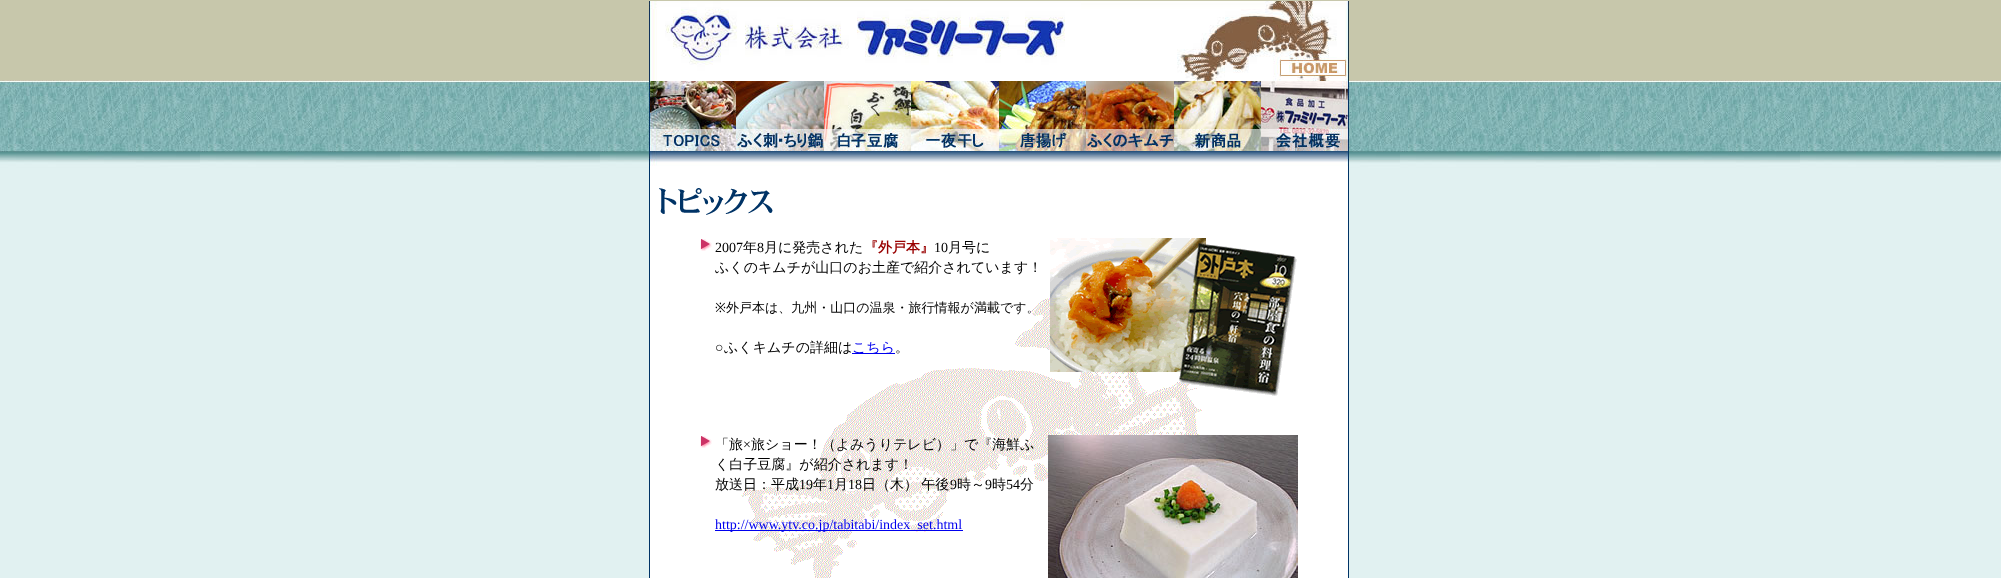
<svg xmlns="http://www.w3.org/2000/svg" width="2001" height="578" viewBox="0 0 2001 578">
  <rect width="100%" height="100%" fill="#fff"/>
  <image x="0" y="0" width="2001" height="578" href="img/1.png"/>
  <image x="649" y="1" width="700" height="80" href="img/2.png"/>
  <image x="649" y="81" width="87" height="70" href="img/3.png"/>
  <image x="736" y="81" width="88" height="70" href="img/4.png"/>
  <image x="824" y="81" width="87" height="70" href="img/5.png"/>
  <image x="911" y="81" width="88" height="70" href="img/6.png"/>
  <image x="999" y="81" width="87" height="70" href="img/7.png"/>
  <image x="1086" y="81" width="88" height="70" href="img/8.png"/>
  <image x="1174" y="81" width="87" height="70" href="img/9.png"/>
  <image x="1261" y="81" width="88" height="70" href="img/10.png"/>
  <image x="649" y="151" width="700" height="15" href="img/11.png"/>
  <image x="649" y="166" width="700" height="412" href="img/12.png"/>
  <image x="659" y="188" width="114" height="27" href="img/13.png"/>
  <image x="700" y="239" width="12" height="12" href="img/14.png"/>
  <image x="1050" y="238" width="247" height="158" href="img/15.png"/>
  <path d="M852 353h43v1H852z" fill="#00e"/>
  <image x="700" y="436" width="12" height="12" href="img/14.png"/>
  <image x="1048" y="435" width="250" height="143" href="img/16.png"/>
  <path d="M715 530h248v1H715z" fill="#00e"/>
  <text x="715" y="252" font-family="Liberation Serif" font-size="14" fill="#000">2007</text>
  <text x="743" y="252" font-family="WenQuanYi Zen Hei" font-size="14" font-weight="500" fill="#000">年</text>
  <text x="757" y="252" font-family="Liberation Serif" font-size="14" fill="#000">8</text>
  <text x="764" y="252" font-family="WenQuanYi Zen Hei" font-size="14" font-weight="500" fill="#000">月に発売された</text>
  <text x="864" y="252" font-family="WenQuanYi Zen Hei" font-size="14" font-weight="bold" fill="#900">『外戸本』</text>
  <text x="934" y="252" font-family="Liberation Serif" font-size="14" fill="#000">10</text>
  <g font-family="WenQuanYi Zen Hei" font-size="14" font-weight="500" fill="#000">
    <text x="948" y="252">月号に</text>
    <text x="715" y="272">ふくのキムチが山口のお土産で紹介されています！</text>
  </g>
  <text x="715" y="312" font-family="Noto Sans" font-size="13" fill="#000">※</text>
  <text x="726" y="312" font-family="WenQuanYi Zen Hei" font-size="13" font-weight="500" fill="#000">外戸本は、九州・山口の温泉・旅行情報が満載です。</text>
  <text x="715" y="352" font-family="Liberation Serif" font-size="14" fill="#000">○</text>
  <text x="724" y="352" font-family="WenQuanYi Zen Hei" font-size="14" font-weight="500" fill="#000">ふくキムチの詳細は</text>
  <text x="852" y="352" font-family="WenQuanYi Zen Hei" font-size="14" font-weight="500" fill="#00e">こちら</text>
  <g font-family="WenQuanYi Zen Hei" font-size="14" font-weight="500" fill="#000">
    <text x="895" y="352">。</text>
    <text x="715" y="449">「旅</text>
  </g>
  <text x="743" y="449" font-family="Liberation Serif" font-size="14" fill="#000">×</text>
  <g font-family="WenQuanYi Zen Hei" font-size="14" font-weight="500" fill="#000">
    <text x="751" y="449">旅ショー！（よみうりテレビ）」で『海鮮ふ</text>
    <text x="715" y="469">く白子豆腐』が紹介されます！</text>
    <text x="715" y="489">放送日：平成</text>
  </g>
  <text x="799" y="489" font-family="Liberation Serif" font-size="14" fill="#000">19</text>
  <text x="813" y="489" font-family="WenQuanYi Zen Hei" font-size="14" font-weight="500" fill="#000">年</text>
  <text x="827" y="489" font-family="Liberation Serif" font-size="14" fill="#000">1</text>
  <text x="834" y="489" font-family="WenQuanYi Zen Hei" font-size="14" font-weight="500" fill="#000">月</text>
  <text x="848" y="489" font-family="Liberation Serif" font-size="14" fill="#000">18</text>
  <text x="862" y="489" word-spacing="-1" font-family="WenQuanYi Zen Hei" font-size="14" font-weight="500" fill="#000">日（木） 午後</text>
  <text x="950" y="489" font-family="Liberation Serif" font-size="14" fill="#000">9</text>
  <text x="957" y="489" font-family="WenQuanYi Zen Hei" font-size="14" font-weight="500" fill="#000">時～</text>
  <text x="985" y="489" font-family="Liberation Serif" font-size="14" fill="#000">9</text>
  <text x="992" y="489" font-family="WenQuanYi Zen Hei" font-size="14" font-weight="500" fill="#000">時</text>
  <text x="1006" y="489" font-family="Liberation Serif" font-size="14" fill="#000">54</text>
  <text x="1020" y="489" font-family="WenQuanYi Zen Hei" font-size="14" font-weight="500" fill="#000">分</text>
  <text x="715" y="529" font-family="Liberation Serif" font-size="14" fill="#00e">http://www.ytv.co.jp/tabitabi/index_set.html</text>
</svg>
